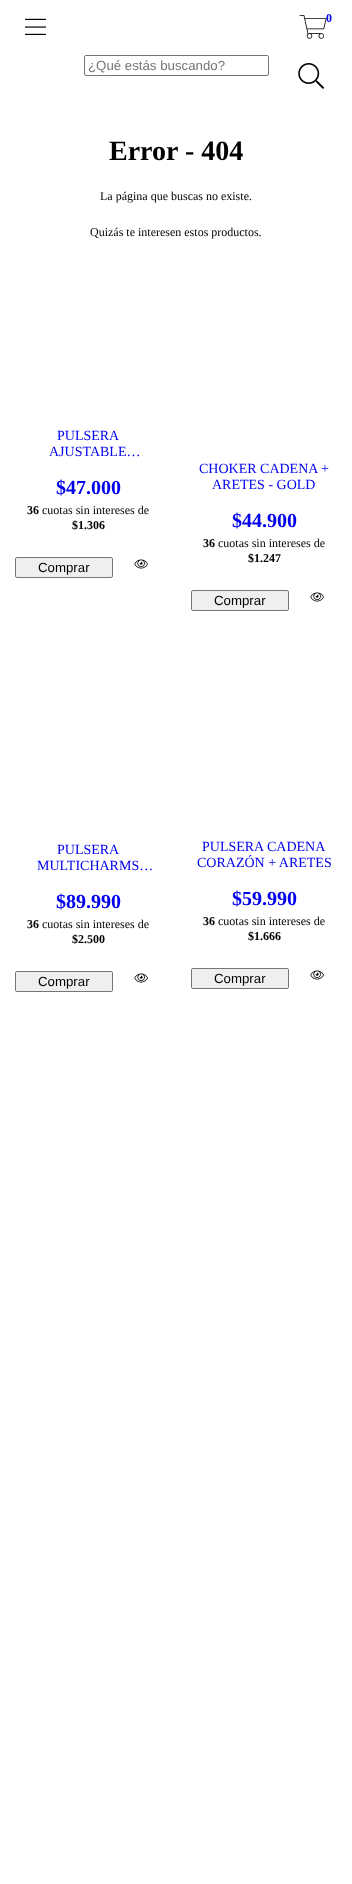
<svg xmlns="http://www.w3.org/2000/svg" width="352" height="1884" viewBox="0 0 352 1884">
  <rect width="100%" height="100%" fill="#fff"/>
  <image x="25" y="18" width="21" height="17" href="img/1.png"/>
  <image x="299" y="15" width="28" height="24" href="img/2.png"/>
  <rect x="84.5" y="55.5" width="184" height="20" rx="1.5" fill="none" stroke="#767676"/>
  <image x="298" y="63" width="26" height="26" href="img/3.png"/>
  <rect x="15.5" y="557.5" width="97" height="20" rx="1.5" fill="#efefef" stroke="#767676"/>
  <image x="134" y="559" width="14" height="10" href="img/4.png"/>
  <rect x="191.5" y="590.5" width="97" height="20" rx="1.5" fill="#efefef" stroke="#767676"/>
  <image x="310" y="592" width="14" height="10" href="img/4.png"/>
  <rect x="15.5" y="971.5" width="97" height="20" rx="1.5" fill="#efefef" stroke="#767676"/>
  <image x="134" y="973" width="14" height="10" href="img/4.png"/>
  <rect x="191.5" y="968.5" width="97" height="20" rx="1.5" fill="#efefef" stroke="#767676"/>
  <image x="310" y="970" width="14" height="10" href="img/4.png"/>
  <text x="326" y="22" font-family="Liberation Serif" font-size="12" font-weight="bold" fill="#00e">0</text>
  <text x="88" y="70" font-family="Liberation Sans" font-size="13.25" fill="#757575">¿Qué estás buscando?</text>
  <text x="109" y="160" font-family="Liberation Serif" font-size="28" font-weight="bold" fill="#000">Error - 404</text>
  <g font-family="Liberation Serif" font-size="12" fill="#000">
    <text x="100" y="200">La página que buscas no existe.</text>
    <text x="90" y="236">Quizás te interesen estos productos.</text>
  </g>
  <g font-family="Liberation Serif" font-size="14" fill="#00e">
    <text x="57" y="440">PULSERA</text>
    <text x="49" y="456">AJUSTABLE…</text>
  </g>
  <text x="56" y="494" font-family="Liberation Serif" font-size="20" font-weight="bold" fill="#00e">$47.000</text>
  <text x="27" y="514" font-family="Liberation Serif" font-size="12" font-weight="bold" fill="#000">36</text>
  <text x="42" y="514" font-family="Liberation Serif" font-size="12" fill="#000">cuotas sin intereses de</text>
  <text x="72" y="529" font-family="Liberation Serif" font-size="12" font-weight="bold" fill="#000">$1.306</text>
  <text x="38" y="572" font-family="Liberation Sans" font-size="13.25" fill="#000">Comprar</text>
  <g font-family="Liberation Serif" font-size="14" fill="#00e">
    <text x="199" y="473">CHOKER CADENA +</text>
    <text x="212" y="489">ARETES - GOLD</text>
  </g>
  <text x="232" y="527" font-family="Liberation Serif" font-size="20" font-weight="bold" fill="#00e">$44.900</text>
  <text x="203" y="547" font-family="Liberation Serif" font-size="12" font-weight="bold" fill="#000">36</text>
  <text x="218" y="547" font-family="Liberation Serif" font-size="12" fill="#000">cuotas sin intereses de</text>
  <text x="248" y="562" font-family="Liberation Serif" font-size="12" font-weight="bold" fill="#000">$1.247</text>
  <text x="214" y="605" font-family="Liberation Sans" font-size="13.25" fill="#000">Comprar</text>
  <g font-family="Liberation Serif" font-size="14" fill="#00e">
    <text x="57" y="854">PULSERA</text>
    <text x="37" y="870">MULTICHARMS…</text>
  </g>
  <text x="56" y="908" font-family="Liberation Serif" font-size="20" font-weight="bold" fill="#00e">$89.990</text>
  <text x="27" y="928" font-family="Liberation Serif" font-size="12" font-weight="bold" fill="#000">36</text>
  <text x="42" y="928" font-family="Liberation Serif" font-size="12" fill="#000">cuotas sin intereses de</text>
  <text x="72" y="943" font-family="Liberation Serif" font-size="12" font-weight="bold" fill="#000">$2.500</text>
  <text x="38" y="986" font-family="Liberation Sans" font-size="13.25" fill="#000">Comprar</text>
  <g font-family="Liberation Serif" font-size="14" fill="#00e">
    <text x="202" y="851">PULSERA CADENA</text>
    <text x="197" y="867">CORAZÓN + ARETES</text>
  </g>
  <text x="232" y="905" font-family="Liberation Serif" font-size="20" font-weight="bold" fill="#00e">$59.990</text>
  <text x="203" y="925" font-family="Liberation Serif" font-size="12" font-weight="bold" fill="#000">36</text>
  <text x="218" y="925" font-family="Liberation Serif" font-size="12" fill="#000">cuotas sin intereses de</text>
  <text x="248" y="940" font-family="Liberation Serif" font-size="12" font-weight="bold" fill="#000">$1.666</text>
  <text x="214" y="983" font-family="Liberation Sans" font-size="13.25" fill="#000">Comprar</text>
</svg>
